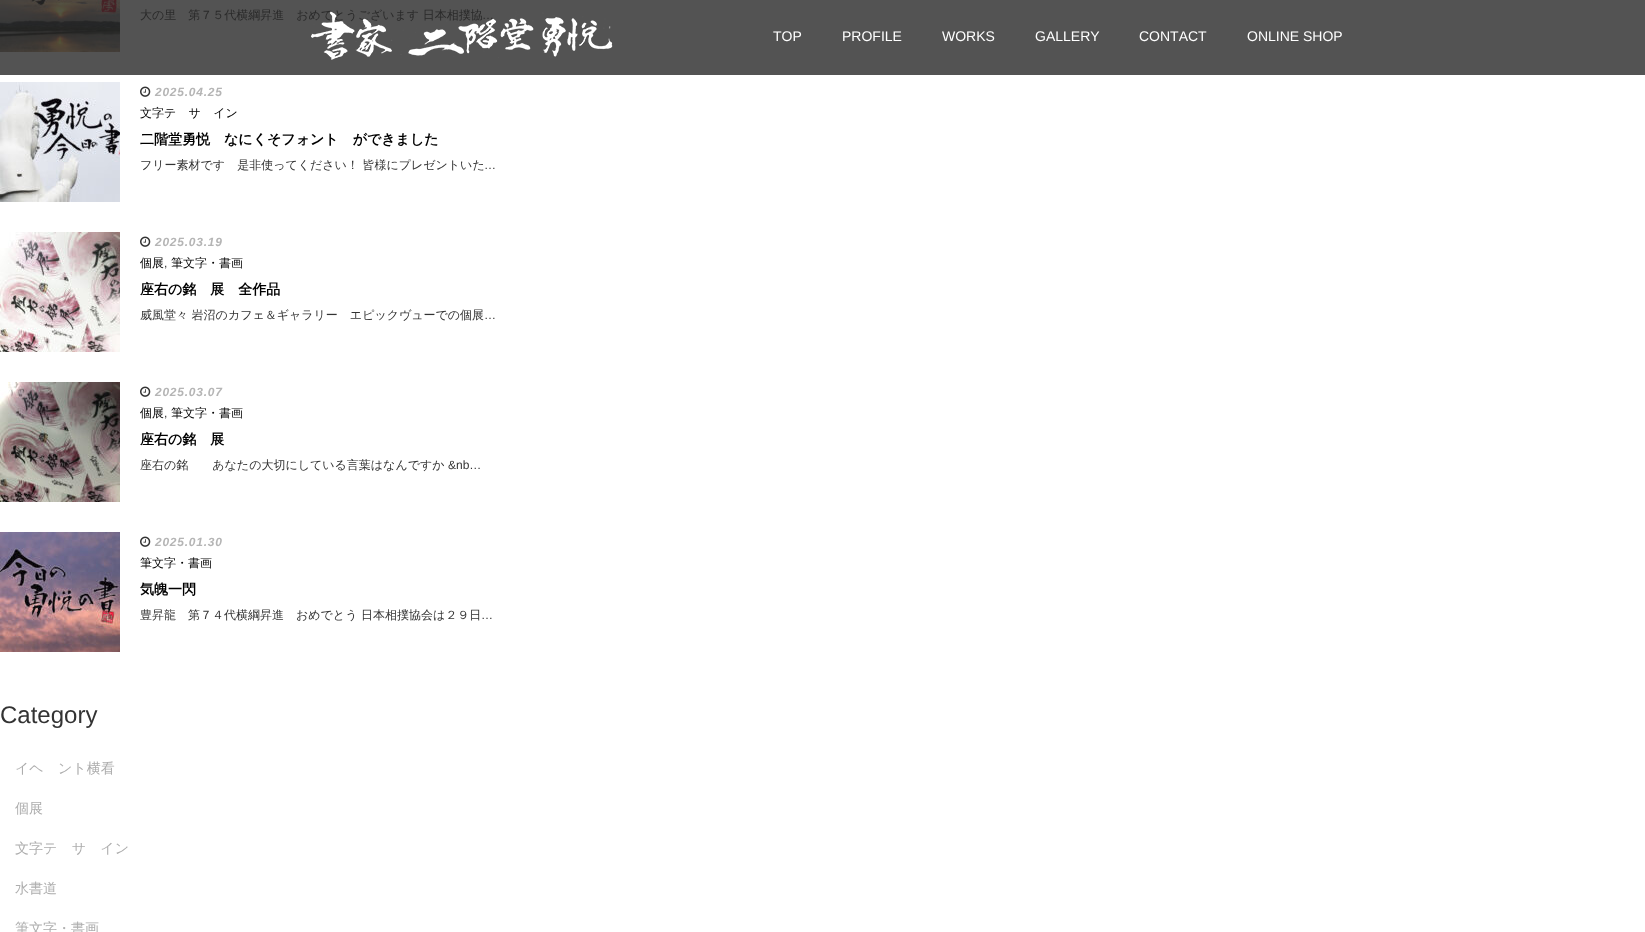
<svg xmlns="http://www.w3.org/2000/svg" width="1645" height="932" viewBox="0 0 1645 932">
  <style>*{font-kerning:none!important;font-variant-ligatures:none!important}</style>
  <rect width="100%" height="100%" fill="#fff"/>
  <path d="M0 0h1645v75H0z" fill="#535353"/>
  <image x="0" y="0" width="120" height="52" href="img/1.png"/>
  <image x="0" y="82" width="120" height="120" href="img/2.png"/>
  <image x="140" y="86" width="11" height="11" href="img/3.png"/>
  <image x="0" y="232" width="120" height="120" href="img/4.png"/>
  <image x="140" y="236" width="11" height="11" href="img/3.png"/>
  <image x="0" y="382" width="120" height="120" href="img/5.png"/>
  <image x="140" y="386" width="11" height="11" href="img/3.png"/>
  <image x="0" y="532" width="120" height="120" href="img/6.png"/>
  <image x="140" y="536" width="11" height="11" href="img/3.png"/>
  <text x="140" y="19" font-family="WenQuanYi Zen Hei" font-size="12" font-weight="500" fill="#2a2a2a">大の里　第７５代横綱昇進　おめでとうございます 日本相撲協</text>
  <text x="482" y="19" font-family="Liberation Sans" font-size="12" fill="#2a2a2a">…</text>
  <text x="155" y="96" font-family="Liberation Sans" font-size="12" font-weight="bold" font-style="italic" letter-spacing="0.75" fill="#b5b5b5">2025.04.25</text>
  <text x="140" y="117" font-family="WenQuanYi Zen Hei" font-size="12" font-weight="500" fill="#000">文字デザイン</text>
  <text x="140" y="144" font-family="WenQuanYi Zen Hei" font-size="14" font-weight="bold" fill="#000">二階堂勇悦　なにくそフォント　ができました</text>
  <text x="140" y="169" font-family="WenQuanYi Zen Hei" font-size="12" font-weight="500" fill="#333">フリー素材です　是非使ってください！ 皆様にプレゼントいた</text>
  <text x="484" y="169" font-family="Liberation Sans" font-size="12" fill="#333">…</text>
  <text x="155" y="246" font-family="Liberation Sans" font-size="12" font-weight="bold" font-style="italic" letter-spacing="0.75" fill="#b5b5b5">2025.03.19</text>
  <text x="140" y="267" font-family="WenQuanYi Zen Hei" font-size="12" font-weight="500" fill="#000">個展</text>
  <text x="164" y="267" font-family="Liberation Sans" font-size="12" fill="#333">,</text>
  <text x="171" y="267" font-family="WenQuanYi Zen Hei" font-size="12" font-weight="500" fill="#000">筆文字・書画</text>
  <text x="140" y="294" font-family="WenQuanYi Zen Hei" font-size="14" font-weight="bold" fill="#000">座右の銘　展　全作品</text>
  <text x="140" y="319" font-family="WenQuanYi Zen Hei" font-size="12" font-weight="500" fill="#333">威風堂々 岩沼のカフェ＆ギャラリー　エピックヴューでの個展</text>
  <text x="484" y="319" font-family="Liberation Sans" font-size="12" fill="#333">…</text>
  <text x="155" y="396" font-family="Liberation Sans" font-size="12" font-weight="bold" font-style="italic" letter-spacing="0.75" fill="#b5b5b5">2025.03.07</text>
  <text x="140" y="417" font-family="WenQuanYi Zen Hei" font-size="12" font-weight="500" fill="#000">個展</text>
  <text x="164" y="417" font-family="Liberation Sans" font-size="12" fill="#333">,</text>
  <text x="171" y="417" font-family="WenQuanYi Zen Hei" font-size="12" font-weight="500" fill="#000">筆文字・書画</text>
  <text x="140" y="444" font-family="WenQuanYi Zen Hei" font-size="14" font-weight="bold" fill="#000">座右の銘　展</text>
  <text x="140" y="469" font-family="WenQuanYi Zen Hei" font-size="12" font-weight="500" fill="#333">座右の銘　　あなたの大切にしている言葉はなんですか</text>
  <text x="448" y="469" font-family="Liberation Sans" font-size="12" fill="#333">&amp;nb…</text>
  <text x="155" y="546" font-family="Liberation Sans" font-size="12" font-weight="bold" font-style="italic" letter-spacing="0.75" fill="#b5b5b5">2025.01.30</text>
  <text x="140" y="567" font-family="WenQuanYi Zen Hei" font-size="12" font-weight="500" fill="#000">筆文字・書画</text>
  <text x="140" y="594" font-family="WenQuanYi Zen Hei" font-size="14" font-weight="bold" fill="#000">気魄一閃</text>
  <text x="140" y="619" font-family="WenQuanYi Zen Hei" font-size="12" font-weight="500" fill="#333">豊昇龍　第７４代横綱昇進　おめでとう 日本相撲協会は２９日</text>
  <text x="481" y="619" font-family="Liberation Sans" font-size="12" fill="#333">…</text>
  <text x="0" y="723" font-family="Liberation Sans" font-size="24" fill="#333">Category</text>
  <g font-family="WenQuanYi Zen Hei" font-size="14" font-weight="500" fill="#adadad">
    <text x="15" y="773">イベント横看</text>
    <text x="15" y="813">個展</text>
    <text x="15" y="853">文字デザイン</text>
    <text x="15" y="893">水書道</text>
    <text x="15" y="933">筆文字・書画</text>
  </g>
  <image x="311" y="11" width="302" height="49" href="img/7.png"/>
  <g font-family="Liberation Sans" font-size="14" fill="#fff">
    <text x="773" y="41">TOP</text>
    <text x="842" y="41">PROFILE</text>
    <text x="942" y="41">WORKS</text>
    <text x="1035" y="41">GALLERY</text>
    <text x="1139" y="41">CONTACT</text>
    <text x="1247" y="41">ONLINE SHOP</text>
  </g>
</svg>
